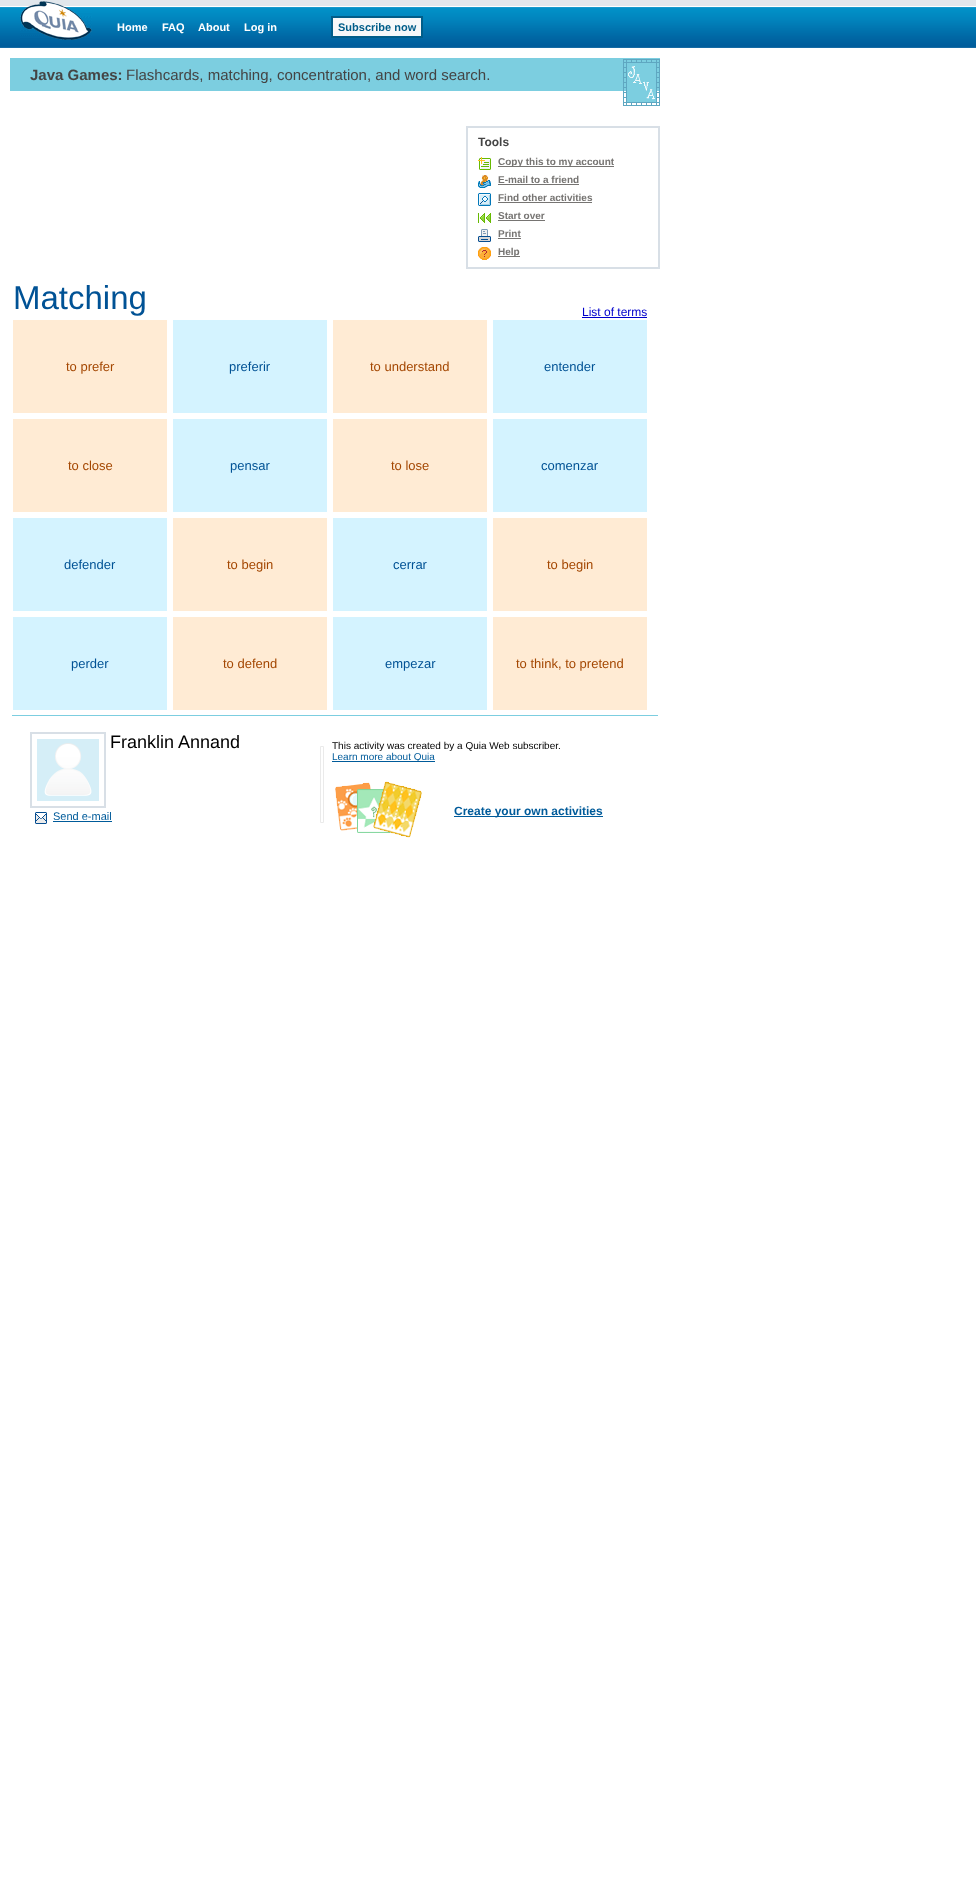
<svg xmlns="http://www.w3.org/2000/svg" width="976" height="1889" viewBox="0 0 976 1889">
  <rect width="100%" height="100%" fill="#fff"/>
  <image x="0" y="0" width="976" height="48" href="img/1.png"/>
  <image x="20" y="1" width="72" height="39" href="img/2.png"/>
  <path d="M332 17h90v20H332z" fill="#f6f8f9" stroke="#005d89" stroke-width="2"/>
  <path d="M10 58h650v33H10z" fill="#7ccee0"/>
  <image x="623" y="59" width="37" height="47" href="img/3.png"/>
  <path d="M467 127h192v141H467z" fill="none" stroke="#d8dfe6" stroke-width="2"/>
  <image x="478" y="157" width="13" height="13" href="img/4.png"/>
  <path d="M498 166h116v1H498z" fill="#767472"/>
  <image x="478" y="175" width="13" height="13" href="img/5.png"/>
  <path d="M498 184h81v1H498z" fill="#767472"/>
  <image x="478" y="193" width="13" height="13" href="img/6.png"/>
  <path d="M498 202h94v1H498z" fill="#767472"/>
  <image x="478" y="213" width="13" height="10" href="img/7.png"/>
  <path d="M498 220h47v1H498z" fill="#767472"/>
  <image x="478" y="229" width="13" height="13" href="img/8.png"/>
  <path d="M498 238h23v1H498z" fill="#767472"/>
  <image x="478" y="247" width="13" height="13" href="img/9.png"/>
  <path d="M498 256h22v1H498z" fill="#767472"/>
  <path d="M582 317h65v1H582z" fill="#00c"/>
  <path d="M13 320h154v93H13z" fill="#ffebd4"/>
  <path d="M173 320h154v93H173z" fill="#d4f3ff"/>
  <path d="M333 320h154v93H333z" fill="#ffebd4"/>
  <path d="M493 320h154v93H493z" fill="#d4f3ff"/>
  <path d="M13 419h154v93H13z" fill="#ffebd4"/>
  <path d="M173 419h154v93H173z" fill="#d4f3ff"/>
  <path d="M333 419h154v93H333z" fill="#ffebd4"/>
  <path d="M493 419h154v93H493z" fill="#d4f3ff"/>
  <path d="M13 518h154v93H13z" fill="#d4f3ff"/>
  <path d="M173 518h154v93H173z" fill="#ffebd4"/>
  <path d="M333 518h154v93H333z" fill="#d4f3ff"/>
  <path d="M493 518h154v93H493z" fill="#ffebd4"/>
  <path d="M13 617h154v93H13z" fill="#d4f3ff"/>
  <path d="M173 617h154v93H173z" fill="#ffebd4"/>
  <path d="M333 617h154v93H333z" fill="#d4f3ff"/>
  <path d="M493 617h154v93H493z" fill="#ffebd4"/>
  <path d="M12 715h646v1H12z" fill="#7ccee0"/>
  <path d="M31 733h74v74H31z" fill="none" stroke="#d8dfe6" stroke-width="2"/>
  <image x="37" y="739" width="62" height="62" href="img/10.png"/>
  <image x="35" y="812" width="12" height="12" href="img/11.png"/>
  <path d="M53 821h59v1H53z" fill="#005b9a"/>
  <path d="M320.5 746.5h3v76H320.5z" fill="none" stroke="#eaeaea"/>
  <path d="M332 761h103v1H332z" fill="#005b9a"/>
  <image x="335" y="781" width="87" height="57" href="img/12.png"/>
  <path d="M454 816h149v1H454z" fill="#005b9a"/>
  <g font-family="Liberation Sans" font-size="11" font-weight="bold" fill="#fff">
    <text x="117" y="31">Home</text>
    <text x="162" y="31">FAQ</text>
    <text x="198" y="31">About</text>
    <text x="244" y="31">Log in</text>
  </g>
  <text x="338" y="31" font-family="Liberation Sans" font-size="11" font-weight="bold" fill="#005d89">Subscribe now</text>
  <text x="30" y="80" font-family="Liberation Sans" font-size="15" font-weight="bold" fill="#444">Java Games:</text>
  <text x="126" y="80" font-family="Liberation Sans" font-size="15" fill="#444">Flashcards, matching, concentration, and word search.</text>
  <text x="478" y="146" font-family="Liberation Sans" font-size="12" font-weight="bold" fill="#444">Tools</text>
  <g font-family="Liberation Sans" font-size="10" font-weight="bold" fill="#767472">
    <text x="498" y="165">Copy this to my account</text>
    <text x="498" y="183">E-mail to a friend</text>
    <text x="498" y="201">Find other activities</text>
    <text x="498" y="219">Start over</text>
    <text x="498" y="237">Print</text>
    <text x="498" y="255">Help</text>
  </g>
  <text x="13" y="309" font-family="Liberation Sans" font-size="33" fill="#005295">Matching</text>
  <text x="582" y="316" font-family="Liberation Sans" font-size="12" fill="#00c">List of terms</text>
  <text x="66" y="371" font-family="Liberation Sans" font-size="13" fill="#a44702">to prefer</text>
  <text x="229" y="371" font-family="Liberation Sans" font-size="13" fill="#005295">preferir</text>
  <text x="370" y="371" font-family="Liberation Sans" font-size="13" fill="#a44702">to understand</text>
  <text x="544" y="371" font-family="Liberation Sans" font-size="13" fill="#005295">entender</text>
  <text x="68" y="470" font-family="Liberation Sans" font-size="13" fill="#a44702">to close</text>
  <text x="230" y="470" font-family="Liberation Sans" font-size="13" fill="#005295">pensar</text>
  <text x="391" y="470" font-family="Liberation Sans" font-size="13" fill="#a44702">to lose</text>
  <g font-family="Liberation Sans" font-size="13" fill="#005295">
    <text x="541" y="470">comenzar</text>
    <text x="64" y="569">defender</text>
  </g>
  <text x="227" y="569" font-family="Liberation Sans" font-size="13" fill="#a44702">to begin</text>
  <text x="393" y="569" font-family="Liberation Sans" font-size="13" fill="#005295">cerrar</text>
  <text x="547" y="569" font-family="Liberation Sans" font-size="13" fill="#a44702">to begin</text>
  <text x="71" y="668" font-family="Liberation Sans" font-size="13" fill="#005295">perder</text>
  <text x="223" y="668" font-family="Liberation Sans" font-size="13" fill="#a44702">to defend</text>
  <text x="385" y="668" font-family="Liberation Sans" font-size="13" fill="#005295">empezar</text>
  <text x="516" y="668" font-family="Liberation Sans" font-size="13" fill="#a44702">to think, to pretend</text>
  <text x="110" y="748" font-family="Liberation Sans" font-size="18" fill="#000">Franklin Annand</text>
  <text x="53" y="820" font-family="Liberation Sans" font-size="11" fill="#005b9a">Send e-mail</text>
  <text x="332" y="749" font-family="Liberation Sans" font-size="10" fill="#000">This activity was created by a Quia Web subscriber.</text>
  <text x="332" y="760" font-family="Liberation Sans" font-size="10" fill="#005b9a">Learn more about Quia</text>
  <text x="454" y="815" font-family="Liberation Sans" font-size="12" font-weight="bold" fill="#005b9a">Create your own activities</text>
</svg>
